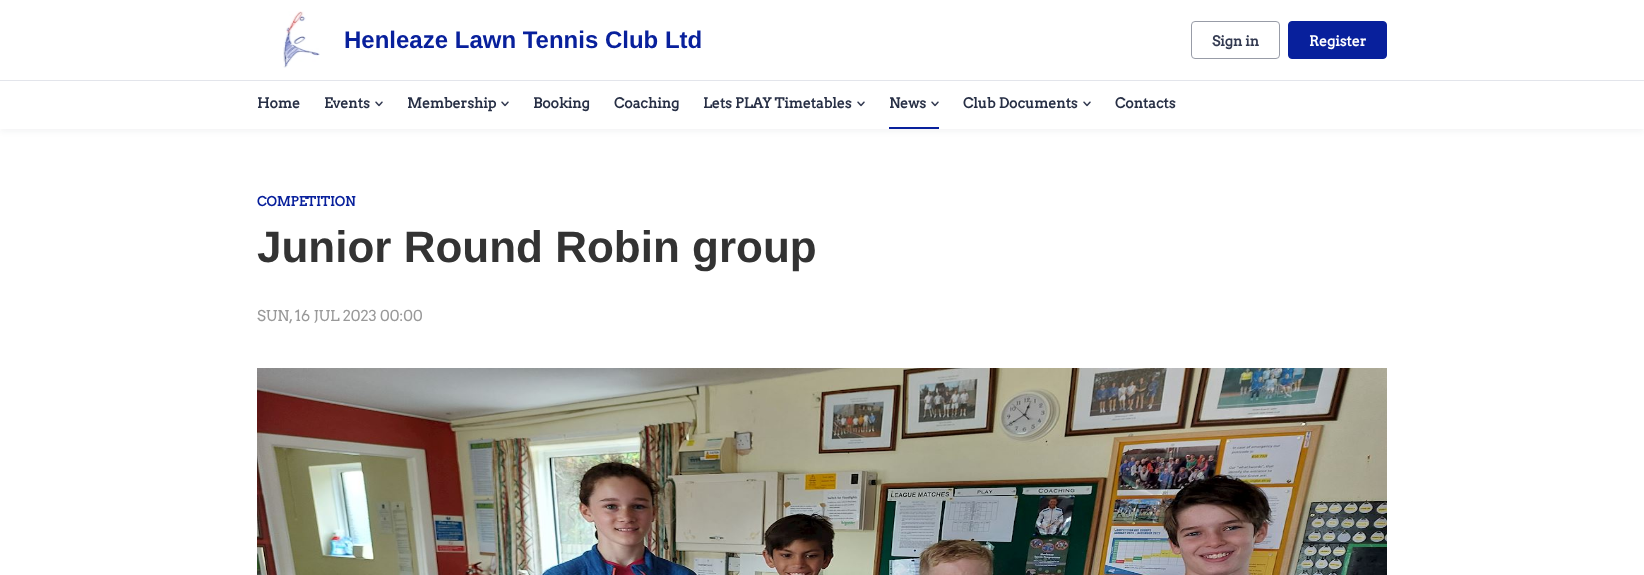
<svg xmlns="http://www.w3.org/2000/svg" width="1644" height="575" viewBox="0 0 1644 575">
  <rect width="100%" height="100%" fill="#fff"/>
  <path d="M0 2h1644v129H0z" fill="#141d370f" filter="blur(3px)"/>
  <path d="M0 0h1644v129H0z" fill="#fff"/>
  <image x="283" y="11" width="37" height="57" href="img/1.png"/>
  <rect x="1191.5" y="21.5" width="88" height="37" rx="3.5" fill="none" stroke="#989ca7"/>
  <rect x="1288.5" y="21.5" width="98" height="37" rx="3.5" fill="#08209c" stroke="#08209c"/>
  <path d="M0 80h1644v1H0z" fill="#e3e5eb"/>
  <image x="375" y="101" width="8" height="6" href="img/2.png"/>
  <image x="501" y="101" width="8" height="6" href="img/2.png"/>
  <image x="857" y="101" width="8" height="6" href="img/2.png"/>
  <path d="M889 127h50v2H889z" fill="#08209c"/>
  <image x="931" y="101" width="8" height="6" href="img/2.png"/>
  <image x="1083" y="101" width="8" height="6" href="img/2.png"/>
  <image x="257" y="368" width="1130" height="207" href="img/3.png"/>
  <text x="344" y="48" font-family="Liberation Sans" font-size="24" font-weight="bold" fill="#08209c">Henleaze Lawn Tennis Club Ltd</text>
  <text x="1212" y="46" font-family="Arvo" font-size="14" font-weight="bold" fill="#323950">Sign in</text>
  <text x="1309" y="46" font-family="Arvo" font-size="14" font-weight="bold" fill="#fff">Register</text>
  <g font-family="Arvo" font-size="14" font-weight="bold" fill="#272f45">
    <text x="257" y="108">Home</text>
    <text x="324" y="108">Events</text>
    <text x="407" y="108">Membership</text>
    <text x="533" y="108">Booking</text>
    <text x="614" y="108">Coaching</text>
    <text x="703" y="108">Lets PLAY Timetables</text>
    <text x="889" y="108">News</text>
    <text x="963" y="108">Club Documents</text>
    <text x="1115" y="108">Contacts</text>
  </g>
  <text x="257" y="206" font-family="Arvo" font-size="13" font-weight="bold" fill="#08209c">COMPETITION</text>
  <text x="257" y="262" font-family="Liberation Sans" font-size="44" font-weight="bold" fill="#333">Junior Round Robin group</text>
  <text x="257" y="321" font-family="Arvo" font-size="15" fill="#999">SUN, 16 JUL 2023 00:00</text>
</svg>
